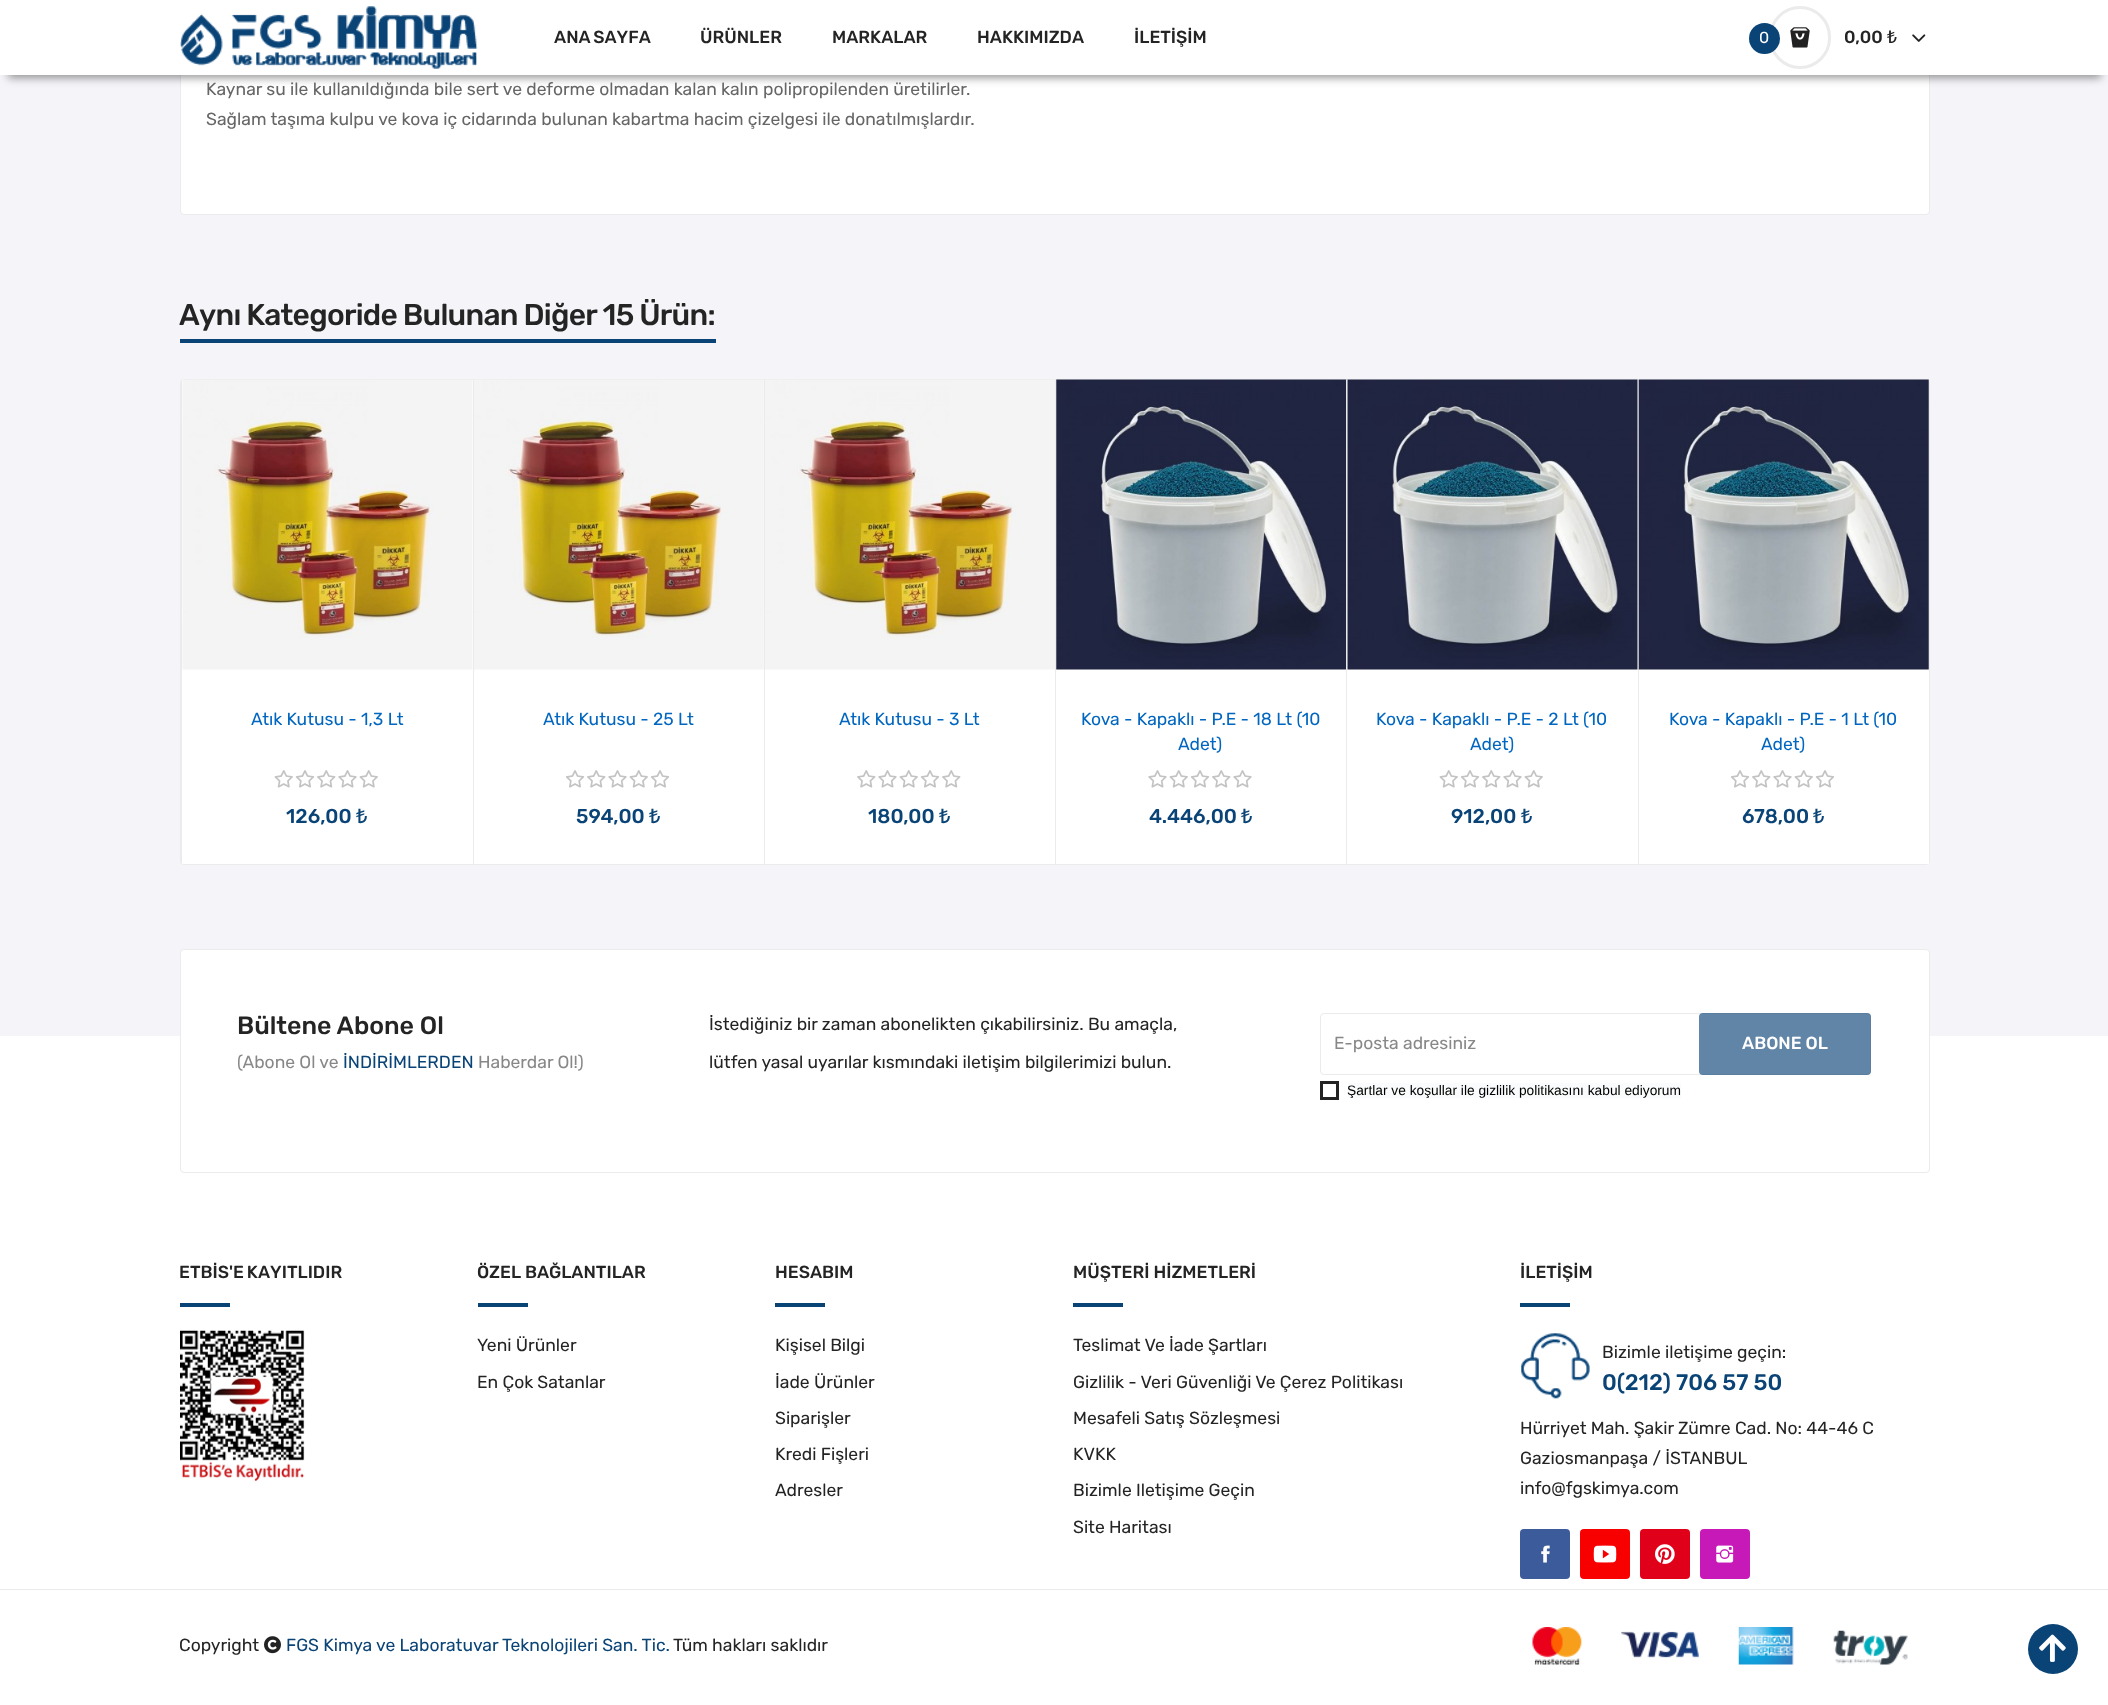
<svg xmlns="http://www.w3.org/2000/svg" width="2108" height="1705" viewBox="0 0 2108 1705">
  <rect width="100%" height="100%" fill="#f5f5f9"/>
  <rect x="180.5" y="-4.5" width="1749" height="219" rx="3.5" fill="#fff" stroke="#ebebeb"/>
  <path d="M8 18h2093v60H8z" fill="#00000066" filter="blur(4px)"/>
  <path d="M0 0h2108v75H0z" fill="#fff"/>
  <image x="180" y="6" width="298" height="63" href="img/1.png"/>
  <rect x="1770.5" y="7.5" width="59" height="60" rx="29.5" fill="none" stroke="#ebebeb" stroke-width="3"/>
  <circle cx="1764.5" cy="38.5" r="15.5" fill="#0a4477"/>
  <image x="1790" y="27" width="20" height="21" href="img/2.png"/>
  <image x="1912" y="34" width="14" height="8" href="img/3.png"/>
  <path d="M180 339h536v4H180z" fill="#0a4477"/>
  <rect x="180.5" y="379.5" width="1749" height="485" rx="3.5" fill="#fff" stroke="#ebebeb"/>
  <path d="M182 380h1v484H182z" fill="#fff"/>
  <path d="M181 380h1v484H181z" fill="#ebebeb"/>
  <image x="182" y="379" width="291" height="291" href="img/4.png"/>
  <image x="274" y="770" width="19" height="18" href="img/5.png"/>
  <image x="295" y="770" width="20" height="18" href="img/6.png"/>
  <image x="317" y="770" width="19" height="18" href="img/7.png"/>
  <image x="338" y="770" width="19" height="18" href="img/8.png"/>
  <image x="359" y="770" width="19" height="18" href="img/5.png"/>
  <path d="M473 380h1v484H473z" fill="#ebebeb"/>
  <image x="474" y="379" width="290" height="291" href="img/9.png"/>
  <image x="565" y="770" width="20" height="18" href="img/6.png"/>
  <image x="587" y="770" width="19" height="18" href="img/7.png"/>
  <image x="608" y="770" width="19" height="18" href="img/8.png"/>
  <image x="629" y="770" width="19" height="18" href="img/5.png"/>
  <image x="650" y="770" width="20" height="18" href="img/6.png"/>
  <path d="M764 380h1v484H764z" fill="#ebebeb"/>
  <image x="765" y="379" width="290" height="291" href="img/10.png"/>
  <image x="857" y="770" width="19" height="18" href="img/7.png"/>
  <image x="878" y="770" width="19" height="18" href="img/8.png"/>
  <image x="899" y="770" width="19" height="18" href="img/5.png"/>
  <image x="920" y="770" width="20" height="18" href="img/6.png"/>
  <image x="942" y="770" width="19" height="18" href="img/7.png"/>
  <path d="M1055 380h1v484H1055z" fill="#ebebeb"/>
  <image x="1056" y="379" width="291" height="291" href="img/11.png"/>
  <image x="1148" y="770" width="19" height="18" href="img/8.png"/>
  <image x="1169" y="770" width="19" height="18" href="img/5.png"/>
  <image x="1190" y="770" width="20" height="18" href="img/6.png"/>
  <image x="1212" y="770" width="19" height="18" href="img/7.png"/>
  <image x="1233" y="770" width="19" height="18" href="img/8.png"/>
  <path d="M1346 380h1v484H1346z" fill="#ebebeb"/>
  <image x="1347" y="379" width="291" height="291" href="img/12.png"/>
  <image x="1439" y="770" width="19" height="18" href="img/5.png"/>
  <image x="1460" y="770" width="20" height="18" href="img/6.png"/>
  <image x="1482" y="770" width="19" height="18" href="img/7.png"/>
  <image x="1503" y="770" width="19" height="18" href="img/8.png"/>
  <image x="1524" y="770" width="19" height="18" href="img/5.png"/>
  <path d="M1927 380h2v484H1927z" fill="#fff"/>
  <path d="M1638 380h1v484H1638z" fill="#ebebeb"/>
  <image x="1638" y="379" width="291" height="291" href="img/13.png"/>
  <image x="1730" y="770" width="20" height="18" href="img/6.png"/>
  <image x="1752" y="770" width="19" height="18" href="img/7.png"/>
  <image x="1773" y="770" width="19" height="18" href="img/8.png"/>
  <image x="1794" y="770" width="19" height="18" href="img/5.png"/>
  <image x="1815" y="770" width="20" height="18" href="img/6.png"/>
  <path d="M0 1036h2108v669H0z" fill="#fff"/>
  <rect x="180.5" y="949.5" width="1749" height="223" rx="3.5" fill="#fff" stroke="#ebebeb"/>
  <rect x="1320.5" y="1013.5" width="550" height="61" rx="3.5" fill="none" stroke="#ebebeb"/>
  <rect x="1699" y="1013" width="172" height="62" rx="4" fill="#0a4477a6"/>
  <path d="M1321.5 1082.5h16v16H1321.5z" fill="none" stroke="#232323" stroke-width="3"/>
  <path d="M1348 1083h333v15H1348z" fill="#fafbfc"/>
  <path d="M180 1303h50v4H180z" fill="#0a4477"/>
  <image x="180" y="1330" width="125" height="151" href="img/14.png"/>
  <path d="M478 1303h50v4H478z" fill="#0a4477"/>
  <path d="M775 1303h50v4H775z" fill="#0a4477"/>
  <path d="M1073 1303h50v4H1073z" fill="#0a4477"/>
  <path d="M1520 1303h50v4H1520z" fill="#0a4477"/>
  <image x="1521" y="1333" width="69" height="66" href="img/15.png"/>
  <rect x="1520" y="1529" width="50" height="50" rx="4" fill="#3c5b9b"/>
  <image x="1541" y="1545" width="9" height="18" href="img/16.png"/>
  <rect x="1580" y="1529" width="50" height="50" rx="4" fill="#f80000"/>
  <image x="1593" y="1545" width="24" height="18" href="img/17.png"/>
  <rect x="1640" y="1529" width="50" height="50" rx="4" fill="#e00019"/>
  <image x="1655" y="1544" width="20" height="20" href="img/18.png"/>
  <rect x="1700" y="1529" width="50" height="50" rx="4" fill="#c619b8"/>
  <image x="1716" y="1545" width="18" height="18" href="img/19.png"/>
  <path d="M0 1589h2108v1H0z" fill="#ebebeb"/>
  <image x="264" y="1636" width="17" height="18" href="img/20.png"/>
  <image x="1532" y="1627" width="376" height="38" href="img/21.png"/>
  <circle cx="2053" cy="1649" r="25" fill="#0a4477"/>
  <image x="2039" y="1634" width="27" height="28" href="img/22.png"/>
  <g font-family="Rubik" font-size="17.5" font-weight="500" fill="#242424">
    <text x="554" y="43" word-spacing="-1">ANA SAYFA</text>
    <text x="700" y="43">ÜRÜNLER</text>
    <text x="832" y="43">MARKALAR</text>
    <text x="977" y="43">HAKKIMIZDA</text>
    <text x="1134" y="43">İLETİŞİM</text>
  </g>
  <text x="1759" y="43" font-family="Rubik" font-size="16" fill="#fff">0</text>
  <text x="1844" y="43" font-family="Rubik" font-size="17.5" font-weight="500" fill="#242424">0,00</text>
  <text x="1887" y="43" font-family="Noto Sans" font-size="17.5" font-weight="500" fill="#242424">₺</text>
  <g font-family="Rubik" font-size="17.5" fill="#666">
    <text x="206" y="95">Kaynar su ile kullanıldığında bile sert ve deforme olmadan kalan kalın polipropilenden üretilirler.</text>
    <text x="206" y="125">Sağlam taşıma kulpu ve kova iç cidarında bulunan kabartma hacim çizelgesi ile donatılmışlardır.</text>
  </g>
  <text x="179" y="325" word-spacing="-0.5" font-family="Rubik" font-size="30" font-weight="500" letter-spacing="-0.75" fill="#242424">Aynı Kategoride Bulunan Diğer 15 Ürün:</text>
  <text x="251" y="725" font-family="Rubik" font-size="17.5" fill="#0066c0">Atık Kutusu - 1,3 Lt</text>
  <text x="286" y="823" font-family="Rubik" font-size="20" font-weight="500" fill="#0a4477">126,00</text>
  <text x="356" y="823" font-family="Noto Sans" font-size="20" font-weight="500" fill="#0a4477">₺</text>
  <text x="543" y="725" font-family="Rubik" font-size="17.5" fill="#0066c0">Atık Kutusu - 25 Lt</text>
  <text x="576" y="823" font-family="Rubik" font-size="20" font-weight="500" fill="#0a4477">594,00</text>
  <text x="649" y="823" font-family="Noto Sans" font-size="20" font-weight="500" fill="#0a4477">₺</text>
  <text x="839" y="725" font-family="Rubik" font-size="17.5" fill="#0066c0">Atık Kutusu - 3 Lt</text>
  <text x="868" y="823" font-family="Rubik" font-size="20" font-weight="500" fill="#0a4477">180,00</text>
  <text x="939" y="823" font-family="Noto Sans" font-size="20" font-weight="500" fill="#0a4477">₺</text>
  <g font-family="Rubik" font-size="17.5" fill="#0066c0">
    <text x="1081" y="725">Kova - Kapaklı - P.E - 18 Lt (10</text>
    <text x="1178" y="750">Adet)</text>
  </g>
  <text x="1149" y="823" font-family="Rubik" font-size="20" font-weight="500" fill="#0a4477">4.446,00</text>
  <text x="1241" y="823" font-family="Noto Sans" font-size="20" font-weight="500" fill="#0a4477">₺</text>
  <g font-family="Rubik" font-size="17.5" fill="#0066c0">
    <text x="1376" y="725">Kova - Kapaklı - P.E - 2 Lt (10</text>
    <text x="1470" y="750">Adet)</text>
  </g>
  <text x="1451" y="823" font-family="Rubik" font-size="20" font-weight="500" fill="#0a4477">912,00</text>
  <text x="1521" y="823" font-family="Noto Sans" font-size="20" font-weight="500" fill="#0a4477">₺</text>
  <g font-family="Rubik" font-size="17.5" fill="#0066c0">
    <text x="1669" y="725">Kova - Kapaklı - P.E - 1 Lt (10</text>
    <text x="1761" y="750">Adet)</text>
  </g>
  <text x="1742" y="823" font-family="Rubik" font-size="20" font-weight="500" fill="#0a4477">678,00</text>
  <text x="1813" y="823" font-family="Noto Sans" font-size="20" font-weight="500" fill="#0a4477">₺</text>
  <text x="237" y="1034" font-family="Rubik" font-size="25" font-weight="500" fill="#242424">Bültene Abone Ol</text>
  <text x="237" y="1068" font-family="Rubik" font-size="17.5" fill="#888">(Abone Ol ve</text>
  <text x="343" y="1068" font-family="Rubik" font-size="17.5" fill="#0a4477">İNDİRİMLERDEN</text>
  <text x="478" y="1068" font-family="Rubik" font-size="17.5" fill="#888">Haberdar Ol!)</text>
  <g font-family="Rubik" font-size="17.5" fill="#242424">
    <text x="709" y="1030">İstediğiniz bir zaman abonelikten çıkabilirsiniz. Bu amaçla,</text>
    <text x="709" y="1068">lütfen yasal uyarılar kısmındaki iletişim bilgilerimizi bulun.</text>
  </g>
  <text x="1334" y="1049" font-family="Rubik" font-size="17.5" fill="#888">E-posta adresiniz</text>
  <text x="1742" y="1049" font-family="Rubik" font-size="17.5" font-weight="500" fill="#fff">ABONE OL</text>
  <text x="1347" y="1095" font-family="Liberation Sans" font-size="13.75" fill="#000">Şartlar ve koşullar ile gizlilik politikasını kabul ediyorum</text>
  <g font-family="Rubik" font-size="17.5" font-weight="500" fill="#242424">
    <text x="179" y="1278" word-spacing="-1">ETBİS'E KAYITLIDIR</text>
    <text x="477" y="1278">ÖZEL BAĞLANTILAR</text>
  </g>
  <g font-family="Rubik" font-size="17.5" fill="#242424">
    <text x="477" y="1351">Yeni Ürünler</text>
    <text x="477" y="1388">En Çok Satanlar</text>
  </g>
  <text x="775" y="1278" font-family="Rubik" font-size="17.5" font-weight="500" fill="#242424">HESABIM</text>
  <g font-family="Rubik" font-size="17.5" fill="#242424">
    <text x="775" y="1351">Kişisel Bilgi</text>
    <text x="775" y="1388">İade Ürünler</text>
    <text x="775" y="1424">Siparişler</text>
    <text x="775" y="1460">Kredi Fişleri</text>
    <text x="775" y="1496">Adresler</text>
  </g>
  <text x="1073" y="1278" font-family="Rubik" font-size="17.5" font-weight="500" fill="#242424">MÜŞTERİ HİZMETLERİ</text>
  <g font-family="Rubik" font-size="17.5" fill="#242424">
    <text x="1073" y="1351">Teslimat Ve İade Şartları</text>
    <text x="1073" y="1388">Gizlilik - Veri Güvenliği Ve Çerez Politikası</text>
    <text x="1073" y="1424">Mesafeli Satış Sözleşmesi</text>
    <text x="1073" y="1460">KVKK</text>
    <text x="1073" y="1496">Bizimle Iletişime Geçin</text>
    <text x="1073" y="1533">Site Haritası</text>
  </g>
  <text x="1520" y="1278" font-family="Rubik" font-size="17.5" font-weight="500" fill="#242424">İLETİŞİM</text>
  <text x="1602" y="1358" font-family="Rubik" font-size="17.5" fill="#242424">Bizimle iletişime geçin:</text>
  <text x="1602" y="1390" font-family="Rubik" font-size="22.5" font-weight="500" fill="#0a4477">0(212) 706 57 50</text>
  <g font-family="Rubik" font-size="17.5" fill="#242424">
    <text x="1520" y="1434">Hürriyet Mah. Şakir Zümre Cad. No: 44-46 C</text>
    <text x="1520" y="1464">Gaziosmanpaşa / İSTANBUL</text>
    <text x="1520" y="1494">info@fgskimya.com</text>
    <text x="179" y="1651">Copyright</text>
  </g>
  <text x="286" y="1651" font-family="Rubik" font-size="17.5" fill="#0a4477">FGS Kimya ve Laboratuvar Teknolojileri San. Tic.</text>
  <text x="673" y="1651" font-family="Rubik" font-size="17.5" fill="#242424">Tüm hakları saklıdır</text>
</svg>
